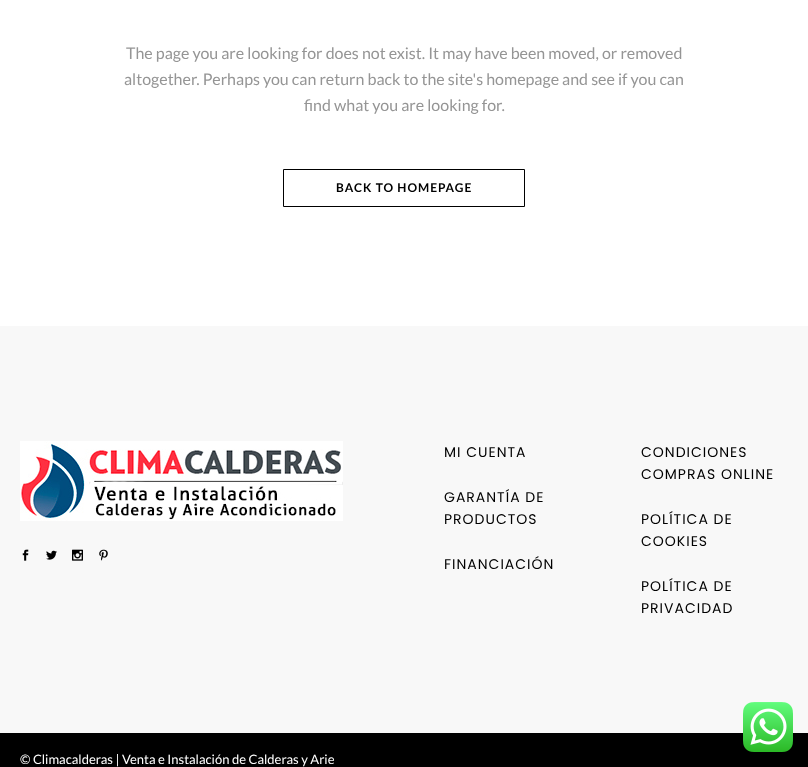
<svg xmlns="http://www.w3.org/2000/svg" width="808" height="767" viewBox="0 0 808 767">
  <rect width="100%" height="100%" fill="#fff"/>
  <path d="M283.5 169.5h241v37H283.5z" fill="none" stroke="#000"/>
  <path d="M0 326h808v407H0z" fill="#f8f8f8"/>
  <image x="20" y="441" width="323" height="80" href="img/1.png"/>
  <image x="22" y="549" width="7" height="12" href="img/2.png"/>
  <image x="46" y="550" width="11" height="10" href="img/3.png"/>
  <image x="72" y="549" width="11" height="12" href="img/4.png"/>
  <image x="99" y="549" width="9" height="12" href="img/5.png"/>
  <path d="M0 733h808v34H0z" fill="#000"/>
  <image x="743" y="702" width="50" height="50" href="img/6.png"/>
  <g font-family="Lato" font-size="16" fill="#959595">
    <text x="126" y="59">The page you are looking for does not exist. It may have been moved, or removed</text>
    <text x="124" y="85">altogether. Perhaps you can return back to the site's homepage and see if you can</text>
    <text x="304" y="111">find what you are looking for.</text>
  </g>
  <text x="336" y="192" font-family="Lato" font-size="12" font-weight="bold" letter-spacing="1" fill="#000">BACK TO HOMEPAGE</text>
  <g font-family="Poppins" font-size="14" letter-spacing="1" fill="#000">
    <text x="444" y="457">MI CUENTA</text>
    <text x="444" y="502">GARANTÍA DE</text>
    <text x="444" y="524">PRODUCTOS</text>
    <text x="444" y="569">FINANCIACIÓN</text>
    <text x="641" y="457">CONDICIONES</text>
    <text x="641" y="479">COMPRAS ONLINE</text>
    <text x="641" y="524">POLÍTICA DE</text>
    <text x="641" y="546">COOKIES</text>
    <text x="641" y="591">POLÍTICA DE</text>
    <text x="641" y="613">PRIVACIDAD</text>
  </g>
  <text x="20" y="764" font-family="Lato" font-size="13" fill="#fff">© Climacalderas | Venta e Instalación de Calderas y Arie</text>
</svg>
